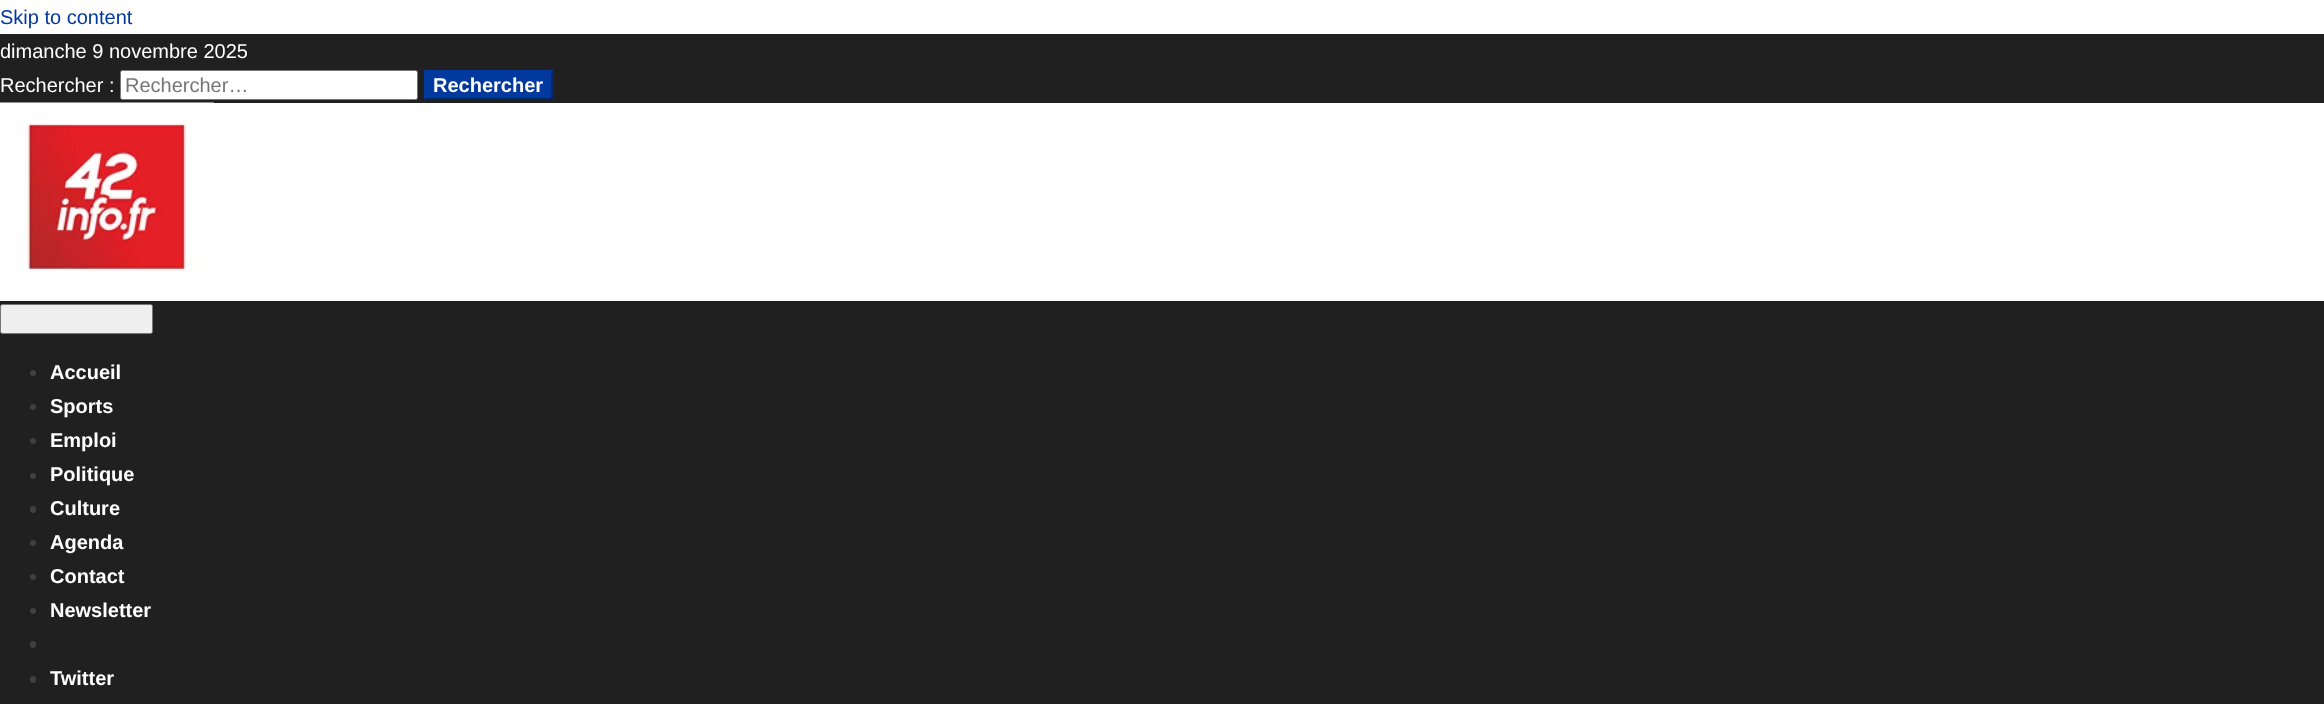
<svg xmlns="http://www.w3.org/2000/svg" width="2324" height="704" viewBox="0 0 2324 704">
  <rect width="100%" height="100%" fill="#fff"/>
  <path d="M0 34h2324v69H0z" fill="#202020"/>
  <rect x="120.5" y="70.5" width="297" height="29" rx="2" fill="#fff" stroke="#767676"/>
  <path d="M424 70h130v30H424z" fill="#02399e"/>
  <path d="M554 70V100L551 97.5V72.5Z" fill="#012669"/>
  <path d="M554 100H424L426 98H551Z" fill="#012669"/>
  <path d="M424 100V70L426 72.5V97.5Z" fill="#02399e"/>
  <image x="0" y="102" width="214" height="171" href="img/1.png"/>
  <path d="M0 301h2324v403H0z" fill="#202020"/>
  <rect x="0.5" y="304.5" width="152" height="29" rx="2" fill="#efefef" stroke="#767676"/>
  <circle cx="33" cy="373" r="3" fill="#404040"/>
  <circle cx="33" cy="407" r="3" fill="#404040"/>
  <circle cx="33" cy="441" r="3" fill="#404040"/>
  <circle cx="33" cy="476" r="3" fill="#404040"/>
  <rect x="30" y="506" width="6" height="7" rx="3" fill="#404040"/>
  <circle cx="33" cy="543" r="3" fill="#404040"/>
  <circle cx="33" cy="577" r="3" fill="#404040"/>
  <circle cx="33" cy="611" r="3" fill="#404040"/>
  <rect x="30" y="641" width="6" height="7" rx="3" fill="#404040"/>
  <rect x="30" y="676" width="6" height="7" rx="3" fill="#404040"/>
  <text x="0" y="24" font-family="Arimo" font-size="20" fill="#02399e">Skip to content</text>
  <g font-family="Arimo" font-size="20" fill="#fff">
    <text x="0" y="58">dimanche 9 novembre 2025</text>
    <text x="0" y="92">Rechercher :</text>
  </g>
  <text x="125" y="92" font-family="Arimo" font-size="20" fill="#757575">Rechercher…</text>
  <g font-family="Arimo" font-size="20" font-weight="bold" fill="#fff">
    <text x="433" y="92">Rechercher</text>
    <text x="50" y="379">Accueil</text>
    <text x="50" y="413">Sports</text>
    <text x="50" y="447">Emploi</text>
    <text x="50" y="481">Politique</text>
    <text x="50" y="515">Culture</text>
    <text x="50" y="549">Agenda</text>
    <text x="50" y="583">Contact</text>
    <text x="50" y="617">Newsletter</text>
    <text x="50" y="685">Twitter</text>
  </g>
</svg>
